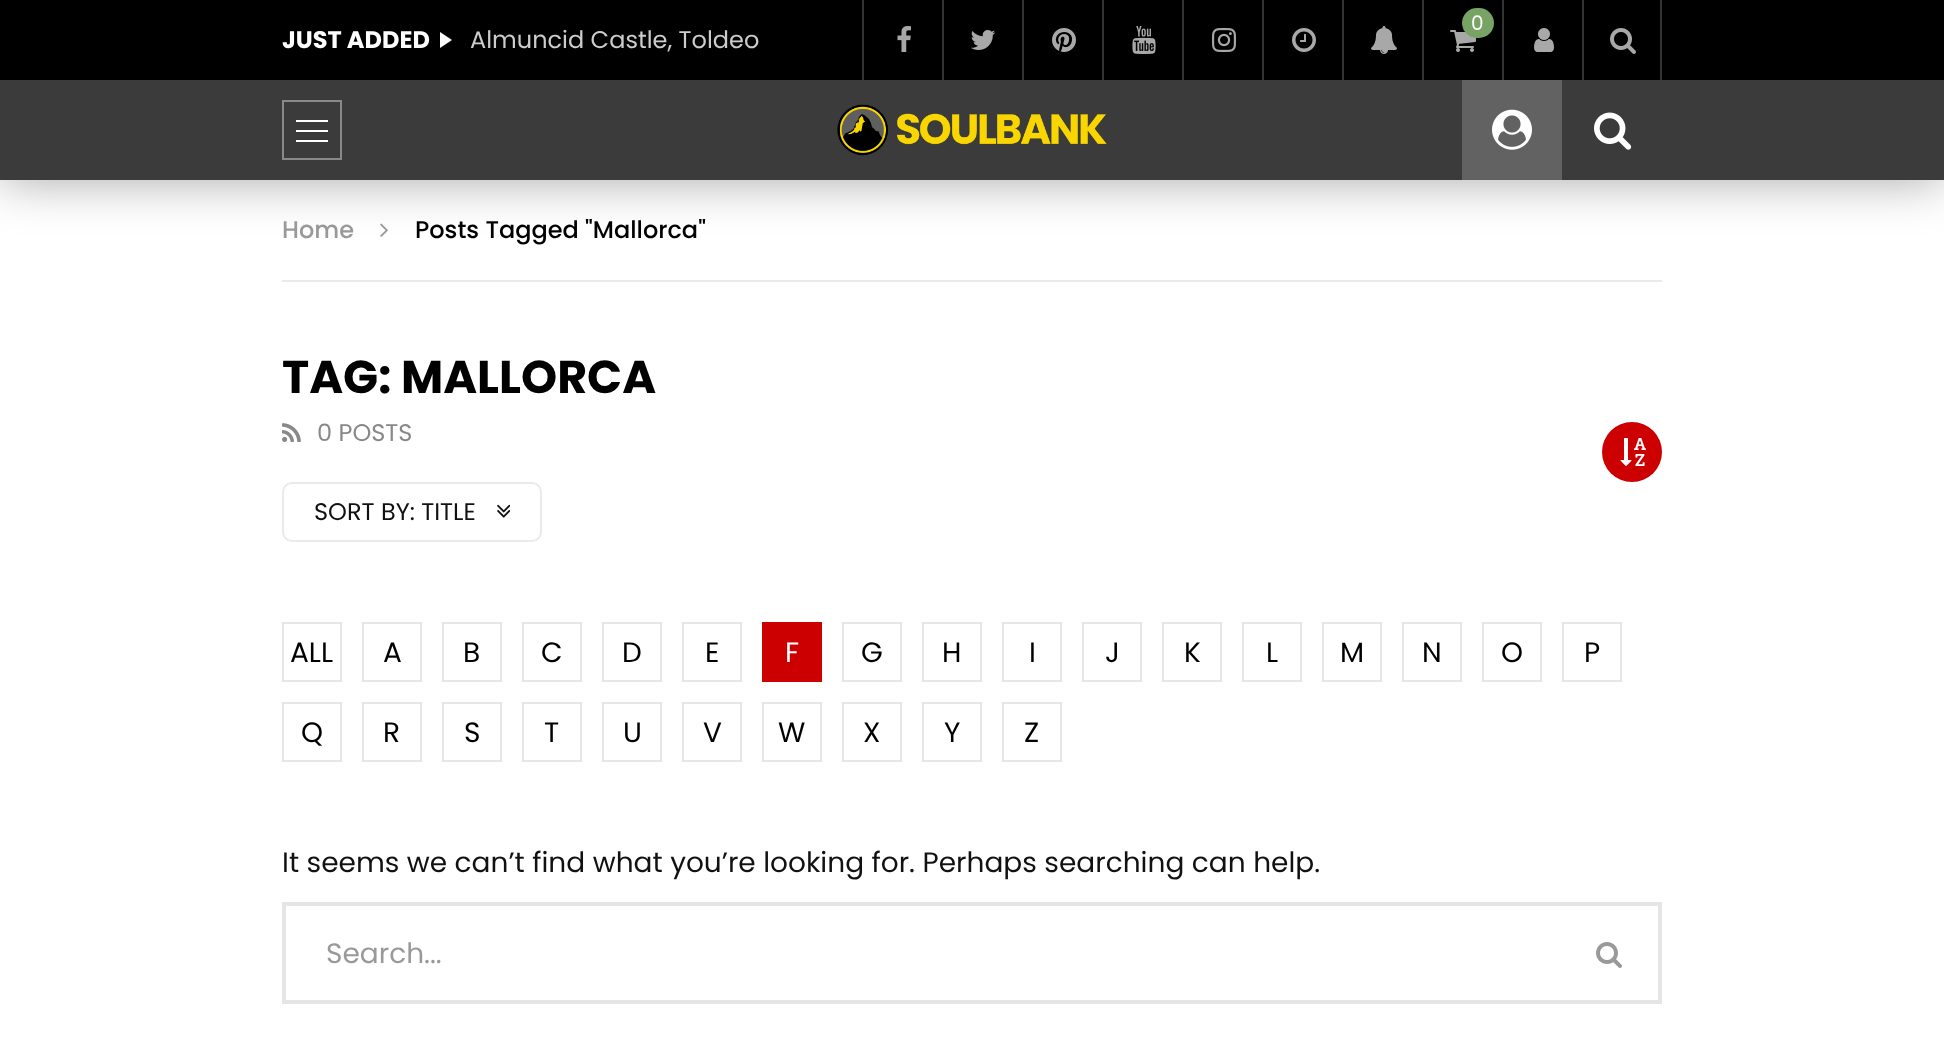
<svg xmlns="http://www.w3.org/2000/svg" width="1944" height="1059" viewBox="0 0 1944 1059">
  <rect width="100%" height="100%" fill="#fff"/>
  <path d="M0 0h1944v80H0z" fill="#000"/>
  <image x="380" y="223" width="8" height="14" href="img/14.png"/>
  <path d="M0 80h1944v100H0z" fill="#00000059" filter="blur(25px)"/>
  <path d="M0 80h1944v100H0z" fill="#3b3b3b"/>
  <path d="M283 101h58v58H283z" fill="none" stroke="#898989" stroke-width="2"/>
  <path d="M296 120h32v2H296z" fill="#fff"/>
  <path d="M296 130h32v2H296z" fill="#fff"/>
  <path d="M296 140h32v2H296z" fill="#fff"/>
  <image x="837" y="104" width="270" height="52" href="img/1.png"/>
  <path d="M1462 80h100v100H1462z" fill="#626262"/>
  <image x="1492" y="109" width="40" height="41" href="img/2.png"/>
  <image x="1594" y="112" width="38" height="38" href="img/3.png"/>
  <path d="M862 0h2v80H862z" fill="#333"/>
  <image x="897" y="26" width="14" height="26" href="img/4.png"/>
  <path d="M942 0h2v80H942z" fill="#333"/>
  <image x="971" y="30" width="25" height="20" href="img/5.png"/>
  <path d="M1022 0h2v80H1022z" fill="#333"/>
  <image x="1052" y="28" width="24" height="24" href="img/6.png"/>
  <path d="M1102 0h2v80H1102z" fill="#333"/>
  <image x="1132" y="26" width="24" height="28" href="img/7.png"/>
  <path d="M1182 0h2v80H1182z" fill="#333"/>
  <image x="1212" y="28" width="24" height="24" href="img/8.png"/>
  <path d="M1262 0h2v80H1262z" fill="#333"/>
  <image x="1292" y="28" width="24" height="24" href="img/9.png"/>
  <path d="M1342 0h2v80H1342z" fill="#333"/>
  <image x="1371" y="26" width="26" height="28" href="img/10.png"/>
  <path d="M1422 0h2v80H1422z" fill="#333"/>
  <image x="1450" y="30" width="26" height="22" href="img/11.png"/>
  <rect x="1462" y="8" width="32" height="30" rx="15" fill="#77a464"/>
  <path d="M1502 0h2v80H1502z" fill="#333"/>
  <image x="1534" y="28" width="20" height="24" href="img/12.png"/>
  <path d="M1660 0h2v80H1660z" fill="#333"/>
  <path d="M1582 0h2v80H1582z" fill="#333"/>
  <image x="1610" y="28" width="26" height="26" href="img/13.png"/>
  <path d="M440 48V32L452 40Z" fill="#fff"/>
  <path d="M282 280h1380v2H282z" fill="#eaeaea"/>
  <image x="282" y="423" width="19" height="19" href="img/15.png"/>
  <rect x="283" y="483" width="258" height="58" rx="9" fill="none" stroke="#eaeaea" stroke-width="2"/>
  <image x="497" y="504" width="13" height="14" href="img/16.png"/>
  <circle cx="1632" cy="452" r="30" fill="#c00"/>
  <image x="1620" y="438" width="26" height="28" href="img/17.png"/>
  <path d="M283 623h58v58H283z" fill="none" stroke="#e6e6e6" stroke-width="2"/>
  <path d="M363 623h58v58H363z" fill="none" stroke="#e6e6e6" stroke-width="2"/>
  <path d="M443 623h58v58H443z" fill="none" stroke="#e6e6e6" stroke-width="2"/>
  <path d="M523 623h58v58H523z" fill="none" stroke="#e6e6e6" stroke-width="2"/>
  <path d="M603 623h58v58H603z" fill="none" stroke="#e6e6e6" stroke-width="2"/>
  <path d="M683 623h58v58H683z" fill="none" stroke="#e6e6e6" stroke-width="2"/>
  <path d="M762 622h60v60H762z" fill="#c00"/>
  <path d="M843 623h58v58H843z" fill="none" stroke="#e6e6e6" stroke-width="2"/>
  <path d="M923 623h58v58H923z" fill="none" stroke="#e6e6e6" stroke-width="2"/>
  <path d="M1003 623h58v58H1003z" fill="none" stroke="#e6e6e6" stroke-width="2"/>
  <path d="M1083 623h58v58H1083z" fill="none" stroke="#e6e6e6" stroke-width="2"/>
  <path d="M1163 623h58v58H1163z" fill="none" stroke="#e6e6e6" stroke-width="2"/>
  <path d="M1243 623h58v58H1243z" fill="none" stroke="#e6e6e6" stroke-width="2"/>
  <path d="M1323 623h58v58H1323z" fill="none" stroke="#e6e6e6" stroke-width="2"/>
  <path d="M1403 623h58v58H1403z" fill="none" stroke="#e6e6e6" stroke-width="2"/>
  <path d="M1483 623h58v58H1483z" fill="none" stroke="#e6e6e6" stroke-width="2"/>
  <path d="M1563 623h58v58H1563z" fill="none" stroke="#e6e6e6" stroke-width="2"/>
  <path d="M283 703h58v58H283z" fill="none" stroke="#e6e6e6" stroke-width="2"/>
  <path d="M363 703h58v58H363z" fill="none" stroke="#e6e6e6" stroke-width="2"/>
  <path d="M443 703h58v58H443z" fill="none" stroke="#e6e6e6" stroke-width="2"/>
  <path d="M523 703h58v58H523z" fill="none" stroke="#e6e6e6" stroke-width="2"/>
  <path d="M603 703h58v58H603z" fill="none" stroke="#e6e6e6" stroke-width="2"/>
  <path d="M683 703h58v58H683z" fill="none" stroke="#e6e6e6" stroke-width="2"/>
  <path d="M763 703h58v58H763z" fill="none" stroke="#e6e6e6" stroke-width="2"/>
  <path d="M843 703h58v58H843z" fill="none" stroke="#e6e6e6" stroke-width="2"/>
  <path d="M923 703h58v58H923z" fill="none" stroke="#e6e6e6" stroke-width="2"/>
  <path d="M1003 703h58v58H1003z" fill="none" stroke="#e6e6e6" stroke-width="2"/>
  <path d="M284 904h1376v98H284z" fill="none" stroke="#e5e5e5" stroke-width="4"/>
  <image x="1596" y="942" width="26" height="26" href="img/18.png"/>
  <text x="1471" y="30" font-family="Poppins" font-size="20" fill="#fff">0</text>
  <text x="282" y="48" font-family="Poppins" font-size="24" font-weight="bold" fill="#fff">JUST ADDED</text>
  <text x="470" y="48" font-family="Poppins" font-size="24" fill="#ccc">Almuncid Castle, Toldeo</text>
  <text x="282" y="238" font-family="Poppins" font-size="24" font-weight="500" fill="#999">Home</text>
  <text x="415" y="238" font-family="Poppins" font-size="24" font-weight="500" fill="#000">Posts Tagged "Mallorca"</text>
  <text x="282" y="393" font-family="Poppins" font-size="46" font-weight="bold" fill="#000">TAG: MALLORCA</text>
  <text x="317" y="441" font-family="Poppins" font-size="24" fill="#888">0 POSTS</text>
  <text x="314" y="520" font-family="Poppins" font-size="24" fill="#111">SORT BY: TITLE</text>
  <g font-family="Poppins" font-size="28" fill="#000">
    <text x="290" y="662">ALL</text>
    <text x="383" y="662">A</text>
    <text x="463" y="662">B</text>
    <text x="541" y="662">C</text>
    <text x="622" y="662">D</text>
    <text x="705" y="662">E</text>
  </g>
  <text x="785" y="662" font-family="Poppins" font-size="28" fill="#fff">F</text>
  <g font-family="Poppins" font-size="28" fill="#000">
    <text x="861" y="662">G</text>
    <text x="942" y="662">H</text>
    <text x="1029" y="662">I</text>
    <text x="1105" y="662">J</text>
    <text x="1184" y="662">K</text>
    <text x="1266" y="662">L</text>
    <text x="1340" y="662">M</text>
    <text x="1422" y="662">N</text>
    <text x="1501" y="662">O</text>
    <text x="1584" y="662">P</text>
    <text x="301" y="742">Q</text>
    <text x="383" y="742">R</text>
    <text x="464" y="742">S</text>
    <text x="544" y="742">T</text>
    <text x="623" y="742">U</text>
    <text x="703" y="742">V</text>
    <text x="778" y="742">W</text>
    <text x="863" y="742">X</text>
    <text x="944" y="742">Y</text>
    <text x="1024" y="742">Z</text>
  </g>
  <text x="282" y="872" font-family="Poppins" font-size="28" fill="#111">It seems we can’t find what you’re looking for. Perhaps searching can help.</text>
  <text x="326" y="963" font-family="Poppins" font-size="28" fill="#999">Search...</text>
</svg>
